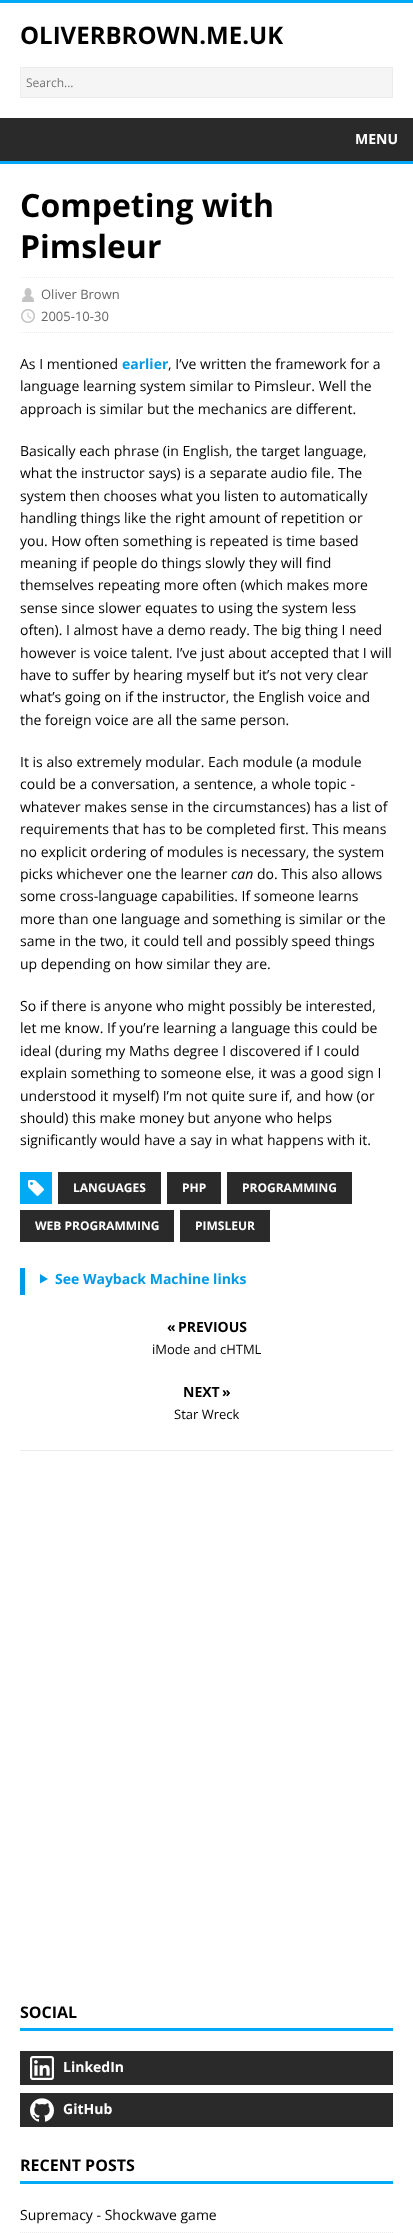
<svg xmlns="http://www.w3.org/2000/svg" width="413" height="2233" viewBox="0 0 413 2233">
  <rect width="100%" height="100%" fill="#fff"/>
  <path d="M0 0h413v3H0z" fill="#03a9f4"/>
  <path d="M0 161h413v3H0z" fill="#03a9f4"/>
  <path d="M20.5 67.5h372v30H20.5z" fill="#f5f5f5" stroke="#ebebeb"/>
  <path d="M0 118h413v43H0z" fill="#2a2a2a"/>
  <path d="M20 277.5H393" fill="none" stroke="#ebebeb" stroke-dasharray="1 1"/>
  <path d="M20 332.5H393" fill="none" stroke="#ebebeb" stroke-dasharray="1 1"/>
  <image x="22" y="288" width="12" height="14" href="img/1.png"/>
  <image x="21" y="309" width="14" height="14" href="img/2.png"/>
  <path d="M20 1172h32v32H20z" fill="#03a9f4"/>
  <image x="28" y="1180" width="16" height="16" href="img/3.png"/>
  <path d="M58 1172h103v32H58z" fill="#2a2a2a"/>
  <path d="M167 1172h54v32H167z" fill="#2a2a2a"/>
  <path d="M227 1172h125v32H227z" fill="#2a2a2a"/>
  <path d="M20 1210h154v32H20z" fill="#2a2a2a"/>
  <path d="M180 1210h90v32H180z" fill="#2a2a2a"/>
  <path d="M20 1268h5v27H20z" fill="#039be5"/>
  <path d="M40 1274L48 1279L40 1283.5Z" fill="#039be5"/>
  <path d="M20 1450h373v1H20z" fill="#ebebeb"/>
  <path d="M20 2028h373v3H20z" fill="#03a9f4"/>
  <path d="M20 2051h373v34H20z" fill="#2a2a2a"/>
  <image x="30" y="2056" width="24" height="24" href="img/4.png"/>
  <path d="M20 2093h373v34H20z" fill="#2a2a2a"/>
  <image x="30" y="2098" width="24" height="24" href="img/5.png"/>
  <path d="M20 2181h373v3H20z" fill="#03a9f4"/>
  <path d="M20 2232.5H393" fill="none" stroke="#ebebeb" stroke-dasharray="1 1"/>
  <text x="20" y="44" font-family="Open Sans" font-size="24" font-weight="bold" fill="#000">OLIVERBROWN.ME.UK</text>
  <text x="26" y="87" font-family="Open Sans" font-size="12" fill="#757575">Search...</text>
  <text x="355" y="144" font-family="Open Sans" font-size="14" font-weight="bold" fill="#fff">MENU</text>
  <g font-family="Open Sans" font-size="32" font-weight="bold" fill="#000">
    <text x="20" y="217">Competing with</text>
    <text x="20" y="258">Pimsleur</text>
  </g>
  <g font-family="Open Sans" font-size="13" fill="#666">
    <text x="41" y="299">Oliver Brown</text>
    <text x="41" y="321">2005-10-30</text>
  </g>
  <text x="20" y="369" font-family="Open Sans" font-size="14" fill="#000">As I mentioned</text>
  <text x="122" y="369" font-family="Open Sans" font-size="14" font-weight="bold" fill="#039be5">earlier</text>
  <g font-family="Open Sans" font-size="14" fill="#000">
    <text x="168" y="369">, I’ve written the framework for a</text>
    <text x="20" y="391">language learning system similar to Pimsleur. Well the</text>
    <text x="20" y="414">approach is similar but the mechanics are different.</text>
    <text x="20" y="456">Basically each phrase (in English, the target language,</text>
    <text x="20" y="478">what the instructor says) is a separate audio file. The</text>
    <text x="20" y="501">system then chooses what you listen to automatically</text>
    <text x="20" y="523">handling things like the right amount of repetition or</text>
    <text x="20" y="546">you. How often something is repeated is time based</text>
    <text x="20" y="568">meaning if people do things slowly they will find</text>
    <text x="20" y="590">themselves repeating more often (which makes more</text>
    <text x="20" y="613">sense since slower equates to using the system less</text>
    <text x="20" y="635">often). I almost have a demo ready. The big thing I need</text>
    <text x="20" y="658">however is voice talent. I’ve just about accepted that I will</text>
    <text x="20" y="680">have to suffer by hearing myself but it’s not very clear</text>
    <text x="20" y="702">what’s going on if the instructor, the English voice and</text>
    <text x="20" y="725">the foreign voice are all the same person.</text>
    <text x="20" y="767">It is also extremely modular. Each module (a module</text>
    <text x="20" y="789">could be a conversation, a sentence, a whole topic -</text>
    <text x="20" y="812">whatever makes sense in the circumstances) has a list of</text>
    <text x="20" y="834">requirements that has to be completed first. This means</text>
    <text x="20" y="857">no explicit ordering of modules is necessary, the system</text>
    <text x="20" y="879">picks whichever one the learner</text>
  </g>
  <text x="231" y="879" font-family="Open Sans" font-size="14" font-style="italic" fill="#000">can</text>
  <g font-family="Open Sans" font-size="14" fill="#000">
    <text x="257" y="879">do. This also allows</text>
    <text x="20" y="901">some cross-language capabilities. If someone learns</text>
    <text x="20" y="924">more than one language and something is similar or the</text>
    <text x="20" y="946">same in the two, it could tell and possibly speed things</text>
    <text x="20" y="969">up depending on how similar they are.</text>
    <text x="20" y="1011">So if there is anyone who might possibly be interested,</text>
    <text x="20" y="1033">let me know. If you’re learning a language this could be</text>
    <text x="20" y="1056">ideal (during my Maths degree I discovered if I could</text>
    <text x="20" y="1078">explain something to someone else, it was a good sign I</text>
    <text x="20" y="1101">understood it myself) I’m not quite sure if, and how (or</text>
    <text x="20" y="1123">should) this make money but anyone who helps</text>
    <text x="20" y="1145">significantly would have a say in what happens with it.</text>
  </g>
  <g font-family="Open Sans" font-size="12" font-weight="bold" fill="#fff">
    <text x="73" y="1192">LANGUAGES</text>
    <text x="182" y="1192">PHP</text>
    <text x="242" y="1192">PROGRAMMING</text>
    <text x="35" y="1230">WEB PROGRAMMING</text>
    <text x="195" y="1230">PIMSLEUR</text>
  </g>
  <text x="55" y="1284" font-family="Open Sans" font-size="14" font-weight="bold" fill="#039be5">See Wayback Machine links</text>
  <text x="167" y="1332" font-family="Open Sans" font-size="14" font-weight="bold" fill="#000">« PREVIOUS</text>
  <text x="152" y="1354" font-family="Open Sans" font-size="13" fill="#000">iMode and cHTML</text>
  <text x="183" y="1397" font-family="Open Sans" font-size="14" font-weight="bold" fill="#000">NEXT »</text>
  <text x="174" y="1419" font-family="Open Sans" font-size="13" fill="#000">Star Wreck</text>
  <text x="20" y="2018" font-family="Open Sans" font-size="16" font-weight="bold" fill="#000">SOCIAL</text>
  <g font-family="Open Sans" font-size="14" font-weight="bold" fill="#fff">
    <text x="63" y="2072">LinkedIn</text>
    <text x="63" y="2114">GitHub</text>
  </g>
  <text x="20" y="2171" font-family="Open Sans" font-size="16" font-weight="bold" fill="#000">RECENT POSTS</text>
  <text x="20" y="2220" font-family="Open Sans" font-size="14" fill="#000">Supremacy - Shockwave game</text>
</svg>
